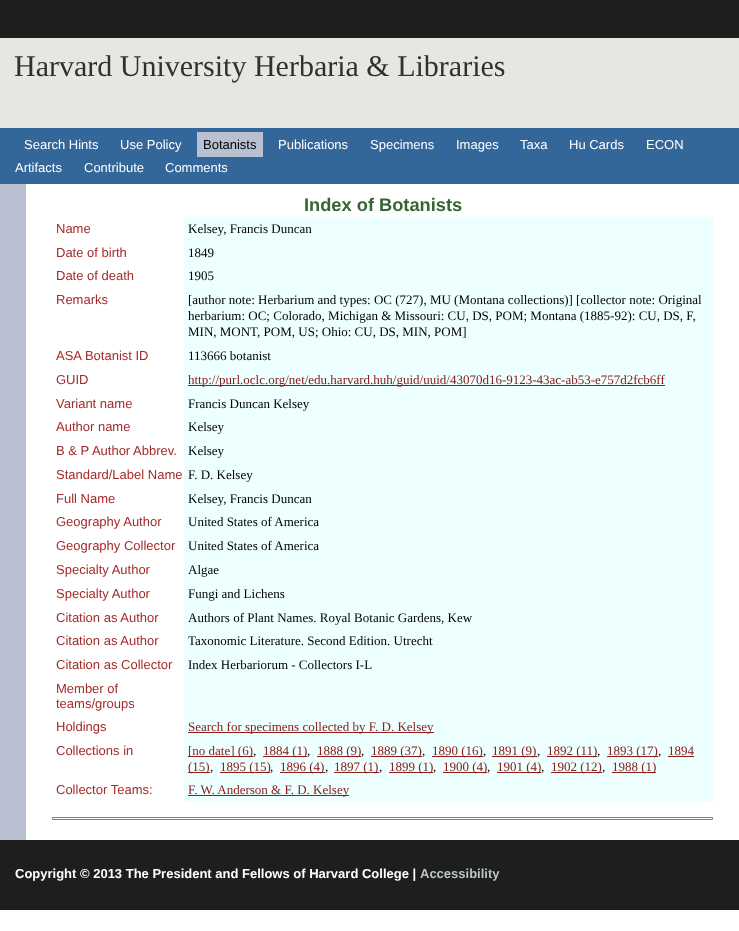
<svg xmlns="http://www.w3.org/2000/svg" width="739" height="931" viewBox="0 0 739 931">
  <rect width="100%" height="100%" fill="#fff"/>
  <path d="M0 0h739v38H0z" fill="#1e1e1e"/>
  <path d="M0 38h739v90H0z" fill="#e6e6e3"/>
  <path d="M0 128h739v56H0z" fill="#369"/>
  <path d="M197 132h66v25H197z" fill="#b8c0d2"/>
  <path d="M0 184h26v656H0z" fill="#b8c0d2"/>
  <path d="M184 217h529v585H184z" fill="#eff"/>
  <path d="M188 385h477v1H188z" fill="#89201b"/>
  <path d="M188 732h246v1H188z" fill="#89201b"/>
  <path d="M188 756h65v1H188z" fill="#89201b"/>
  <path d="M263 756h44v1H263z" fill="#89201b"/>
  <path d="M317 756h44v1H317z" fill="#89201b"/>
  <path d="M371 756h51v1H371z" fill="#89201b"/>
  <path d="M432 756h51v1H432z" fill="#89201b"/>
  <path d="M492 756h45v1H492z" fill="#89201b"/>
  <path d="M547 756h50v1H547z" fill="#89201b"/>
  <path d="M607 756h51v1H607z" fill="#89201b"/>
  <path d="M668 756h26v1H668z" fill="#89201b"/>
  <path d="M188 772h22v1H188z" fill="#89201b"/>
  <path d="M220 772h50v1H220z" fill="#89201b"/>
  <path d="M280 772h45v1H280z" fill="#89201b"/>
  <path d="M334 772h45v1H334z" fill="#89201b"/>
  <path d="M389 772h44v1H389z" fill="#89201b"/>
  <path d="M443 772h44v1H443z" fill="#89201b"/>
  <path d="M497 772h44v1H497z" fill="#89201b"/>
  <path d="M551 772h51v1H551z" fill="#89201b"/>
  <path d="M612 772h44v1H612z" fill="#89201b"/>
  <path d="M188 795h161v1H188z" fill="#89201b"/>
  <path d="M52.5 817.5h660v2H52.5z" fill="none" stroke="#808080"/>
  <path d="M0 840h739v70H0z" fill="#1e1e1e"/>
  <text x="14" y="76" font-family="Liberation Serif" font-size="30" fill="#303030">Harvard University Herbaria &amp; Libraries</text>
  <g font-family="Liberation Sans" font-size="13" fill="#fff">
    <text x="24" y="149">Search Hints</text>
    <text x="120" y="149">Use Policy</text>
  </g>
  <text x="203" y="149" font-family="Liberation Sans" font-size="13" fill="#000">Botanists</text>
  <g font-family="Liberation Sans" font-size="13" fill="#fff">
    <text x="278" y="149">Publications</text>
    <text x="370" y="149">Specimens</text>
    <text x="456" y="149">Images</text>
    <text x="520" y="149">Taxa</text>
    <text x="569" y="149">Hu Cards</text>
    <text x="646" y="149">ECON</text>
    <text x="15" y="172">Artifacts</text>
    <text x="84" y="172">Contribute</text>
    <text x="165" y="172">Comments</text>
  </g>
  <text x="304" y="211" font-family="Liberation Sans" font-size="18.25" font-weight="bold" fill="#363">Index of Botanists</text>
  <text x="56" y="233" font-family="Liberation Sans" font-size="13" fill="#a52a2a">Name</text>
  <text x="188" y="233" font-family="Liberation Serif" font-size="13" fill="#000">Kelsey, Francis Duncan</text>
  <text x="56" y="257" font-family="Liberation Sans" font-size="13" fill="#a52a2a">Date of birth</text>
  <text x="188" y="257" font-family="Liberation Serif" font-size="13" fill="#000">1849</text>
  <text x="56" y="280" font-family="Liberation Sans" font-size="13" fill="#a52a2a">Date of death</text>
  <text x="188" y="280" font-family="Liberation Serif" font-size="13" fill="#000">1905</text>
  <text x="56" y="304" font-family="Liberation Sans" font-size="13" fill="#a52a2a">Remarks</text>
  <g font-family="Liberation Serif" font-size="13" fill="#000">
    <text x="188" y="304">[author note: Herbarium and types: OC (727), MU (Montana collections)] [collector note: Original</text>
    <text x="188" y="320">herbarium: OC; Colorado, Michigan &amp; Missouri: CU, DS, POM; Montana (1885-92): CU, DS, F,</text>
    <text x="188" y="336">MIN, MONT, POM, US; Ohio: CU, DS, MIN, POM]</text>
  </g>
  <text x="56" y="360" font-family="Liberation Sans" font-size="13" fill="#a52a2a">ASA Botanist ID</text>
  <text x="188" y="360" font-family="Liberation Serif" font-size="13" fill="#000">113666 botanist</text>
  <text x="56" y="384" font-family="Liberation Sans" font-size="13" fill="#a52a2a">GUID</text>
  <text x="188" y="384" font-family="Liberation Serif" font-size="13" fill="#89201b">http://purl.oclc.org/net/edu.harvard.huh/guid/uuid/43070d16-9123-43ac-ab53-e757d2fcb6ff</text>
  <text x="56" y="408" font-family="Liberation Sans" font-size="13" fill="#a52a2a">Variant name</text>
  <text x="188" y="408" font-family="Liberation Serif" font-size="13" fill="#000">Francis Duncan Kelsey</text>
  <text x="56" y="431" font-family="Liberation Sans" font-size="13" fill="#a52a2a">Author name</text>
  <text x="188" y="431" font-family="Liberation Serif" font-size="13" fill="#000">Kelsey</text>
  <text x="56" y="455" font-family="Liberation Sans" font-size="13" fill="#a52a2a">B &amp; P Author Abbrev.</text>
  <text x="188" y="455" font-family="Liberation Serif" font-size="13" fill="#000">Kelsey</text>
  <text x="56" y="479" font-family="Liberation Sans" font-size="13" fill="#a52a2a">Standard/Label Name</text>
  <text x="188" y="479" font-family="Liberation Serif" font-size="13" fill="#000">F. D. Kelsey</text>
  <text x="56" y="503" font-family="Liberation Sans" font-size="13" fill="#a52a2a">Full Name</text>
  <text x="188" y="503" font-family="Liberation Serif" font-size="13" fill="#000">Kelsey, Francis Duncan</text>
  <text x="56" y="526" font-family="Liberation Sans" font-size="13" fill="#a52a2a">Geography Author</text>
  <text x="188" y="526" font-family="Liberation Serif" font-size="13" fill="#000">United States of America</text>
  <text x="56" y="550" font-family="Liberation Sans" font-size="13" fill="#a52a2a">Geography Collector</text>
  <text x="188" y="550" font-family="Liberation Serif" font-size="13" fill="#000">United States of America</text>
  <text x="56" y="574" font-family="Liberation Sans" font-size="13" fill="#a52a2a">Specialty Author</text>
  <text x="188" y="574" font-family="Liberation Serif" font-size="13" fill="#000">Algae</text>
  <text x="56" y="598" font-family="Liberation Sans" font-size="13" fill="#a52a2a">Specialty Author</text>
  <text x="188" y="598" font-family="Liberation Serif" font-size="13" fill="#000">Fungi and Lichens</text>
  <text x="56" y="622" font-family="Liberation Sans" font-size="13" fill="#a52a2a">Citation as Author</text>
  <text x="188" y="622" font-family="Liberation Serif" font-size="13" fill="#000">Authors of Plant Names. Royal Botanic Gardens, Kew</text>
  <text x="56" y="645" font-family="Liberation Sans" font-size="13" fill="#a52a2a">Citation as Author</text>
  <text x="188" y="645" font-family="Liberation Serif" font-size="13" fill="#000">Taxonomic Literature. Second Edition. Utrecht</text>
  <text x="56" y="669" font-family="Liberation Sans" font-size="13" fill="#a52a2a">Citation as Collector</text>
  <text x="188" y="669" font-family="Liberation Serif" font-size="13" fill="#000">Index Herbariorum - Collectors I-L</text>
  <g font-family="Liberation Sans" font-size="13" fill="#a52a2a">
    <text x="56" y="693">Member of</text>
    <text x="56" y="708">teams/groups</text>
    <text x="56" y="731">Holdings</text>
  </g>
  <text x="188" y="731" font-family="Liberation Serif" font-size="13" fill="#89201b">Search for specimens collected by F. D. Kelsey</text>
  <text x="56" y="755" font-family="Liberation Sans" font-size="13" fill="#a52a2a">Collections in</text>
  <text x="188" y="755" font-family="Liberation Serif" font-size="13" fill="#89201b">[no date] (6)</text>
  <text x="253" y="755" font-family="Liberation Serif" font-size="13" fill="#000">,</text>
  <text x="263" y="755" font-family="Liberation Serif" font-size="13" fill="#89201b">1884 (1)</text>
  <text x="307" y="755" font-family="Liberation Serif" font-size="13" fill="#000">,</text>
  <text x="317" y="755" font-family="Liberation Serif" font-size="13" fill="#89201b">1888 (9)</text>
  <text x="361" y="755" font-family="Liberation Serif" font-size="13" fill="#000">,</text>
  <text x="371" y="755" font-family="Liberation Serif" font-size="13" fill="#89201b">1889 (37)</text>
  <text x="422" y="755" font-family="Liberation Serif" font-size="13" fill="#000">,</text>
  <text x="432" y="755" font-family="Liberation Serif" font-size="13" fill="#89201b">1890 (16)</text>
  <text x="483" y="755" font-family="Liberation Serif" font-size="13" fill="#000">,</text>
  <text x="492" y="755" font-family="Liberation Serif" font-size="13" fill="#89201b">1891 (9)</text>
  <text x="537" y="755" font-family="Liberation Serif" font-size="13" fill="#000">,</text>
  <text x="547" y="755" font-family="Liberation Serif" font-size="13" fill="#89201b">1892 (11)</text>
  <text x="597" y="755" font-family="Liberation Serif" font-size="13" fill="#000">,</text>
  <text x="607" y="755" font-family="Liberation Serif" font-size="13" fill="#89201b">1893 (17)</text>
  <text x="658" y="755" font-family="Liberation Serif" font-size="13" fill="#000">,</text>
  <g font-family="Liberation Serif" font-size="13" fill="#89201b">
    <text x="668" y="755">1894</text>
    <text x="188" y="771">(15)</text>
  </g>
  <text x="210" y="771" font-family="Liberation Serif" font-size="13" fill="#000">,</text>
  <text x="220" y="771" font-family="Liberation Serif" font-size="13" fill="#89201b">1895 (15)</text>
  <text x="270" y="771" font-family="Liberation Serif" font-size="13" fill="#000">,</text>
  <text x="280" y="771" font-family="Liberation Serif" font-size="13" fill="#89201b">1896 (4)</text>
  <text x="325" y="771" font-family="Liberation Serif" font-size="13" fill="#000">,</text>
  <text x="334" y="771" font-family="Liberation Serif" font-size="13" fill="#89201b">1897 (1)</text>
  <text x="379" y="771" font-family="Liberation Serif" font-size="13" fill="#000">,</text>
  <text x="389" y="771" font-family="Liberation Serif" font-size="13" fill="#89201b">1899 (1)</text>
  <text x="433" y="771" font-family="Liberation Serif" font-size="13" fill="#000">,</text>
  <text x="443" y="771" font-family="Liberation Serif" font-size="13" fill="#89201b">1900 (4)</text>
  <text x="487" y="771" font-family="Liberation Serif" font-size="13" fill="#000">,</text>
  <text x="497" y="771" font-family="Liberation Serif" font-size="13" fill="#89201b">1901 (4)</text>
  <text x="541" y="771" font-family="Liberation Serif" font-size="13" fill="#000">,</text>
  <text x="551" y="771" font-family="Liberation Serif" font-size="13" fill="#89201b">1902 (12)</text>
  <text x="602" y="771" font-family="Liberation Serif" font-size="13" fill="#000">,</text>
  <text x="612" y="771" font-family="Liberation Serif" font-size="13" fill="#89201b">1988 (1)</text>
  <text x="56" y="794" font-family="Liberation Sans" font-size="13" fill="#a52a2a">Collector Teams:</text>
  <text x="188" y="794" font-family="Liberation Serif" font-size="13" fill="#89201b">F. W. Anderson &amp; F. D. Kelsey</text>
  <text x="15" y="878" font-family="Liberation Sans" font-size="13" font-weight="bold" fill="#fff">Copyright © 2013 The President and Fellows of Harvard College |</text>
  <text x="420" y="878" font-family="Liberation Sans" font-size="13" font-weight="bold" fill="#bac5c6">Accessibility</text>
</svg>
